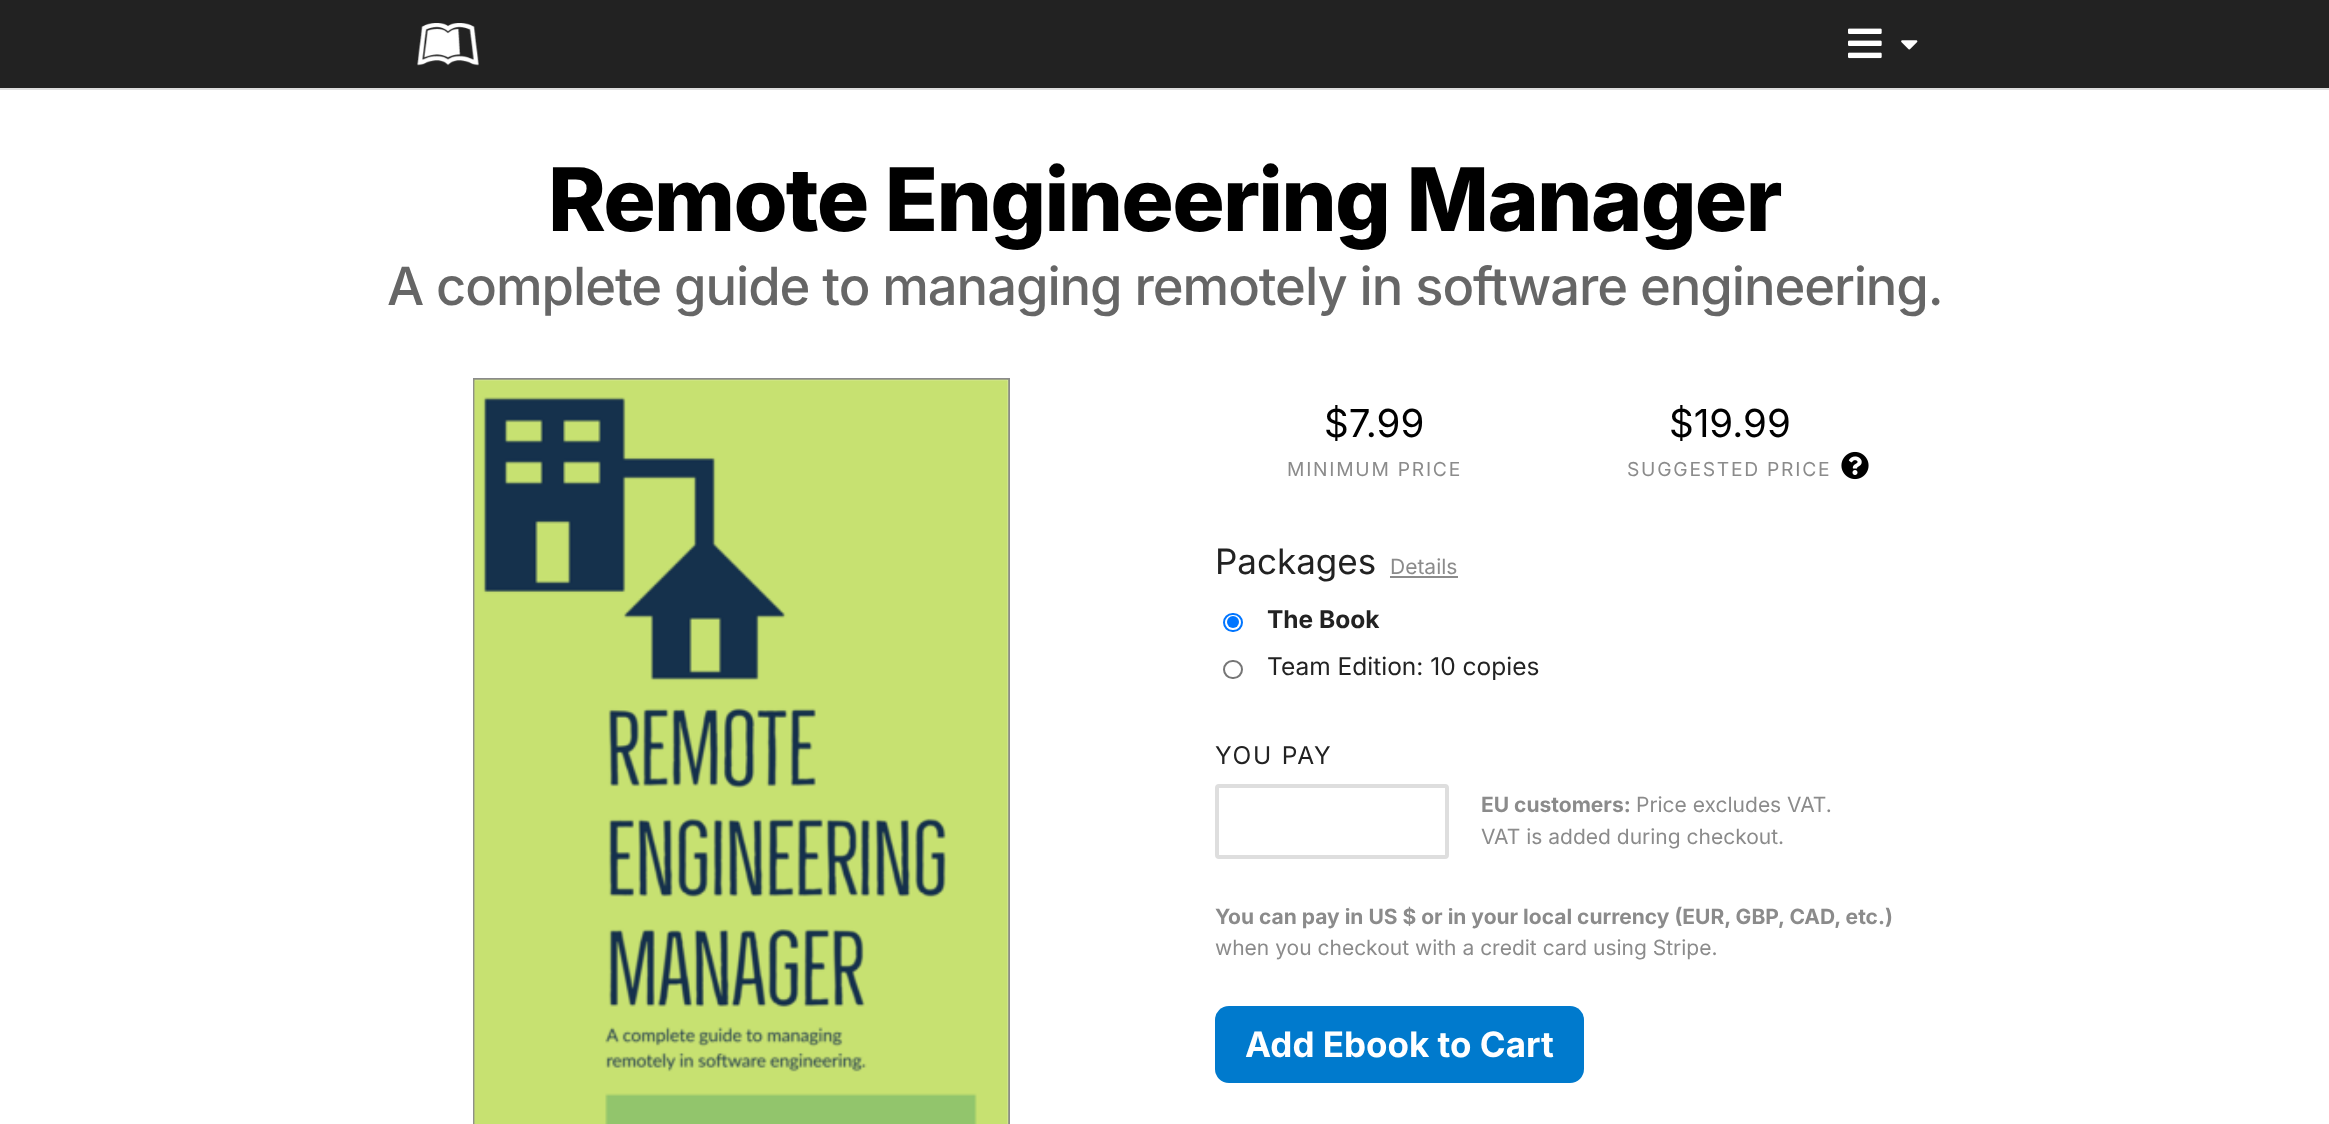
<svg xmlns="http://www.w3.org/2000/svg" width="2329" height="1124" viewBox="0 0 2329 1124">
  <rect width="100%" height="100%" fill="#222"/>
  <image x="417" y="23" width="62" height="43" href="img/1.png"/>
  <image x="1848" y="28" width="34" height="31" href="img/2.png"/>
  <image x="1901" y="40" width="17" height="10" href="img/3.png"/>
  <path d="M0 90h2329v1034H0z" fill="#fff"/>
  <path d="M0 88h2329v2H0z" fill="#dedede"/>
  <path d="M474 379h535v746H474z" fill="none" stroke="#8b8b8b" stroke-width="2"/>
  <image x="473" y="379" width="536" height="745" href="img/4.png"/>
  <image x="1841" y="451" width="28" height="29" href="img/5.png"/>
  <path d="M1390 576h68v2H1390z" fill="#8b8b8b"/>
  <rect x="1224" y="614" width="18" height="17" rx="8.5" fill="none" stroke="#0075ff" stroke-width="2"/>
  <circle cx="1233" cy="622" r="6" fill="#0075ff"/>
  <rect x="1224" y="661" width="18" height="17" rx="8.5" fill="none" stroke="#767676" stroke-width="2"/>
  <rect x="1217" y="786" width="230" height="71" rx="2" fill="none" stroke="#dedede" stroke-width="4"/>
  <rect x="1215" y="1006" width="369" height="77" rx="14" fill="#007acd"/>
  <text x="548" y="231" font-family="Inter" font-size="87.5" font-weight="800" letter-spacing="-1.75" fill="#000">Remote Engineering Manager</text>
  <text x="387" y="305" font-family="Inter" font-size="52.5" font-weight="500" letter-spacing="-1.05" fill="#666">A complete guide to managing remotely in software engineering.</text>
  <text x="1324" y="437" font-family="Inter" font-size="38.5" fill="#000">$7.99</text>
  <text x="1287" y="476" font-family="Inter" font-size="19.25" letter-spacing="1.75" fill="#8b8b8b">MINIMUM PRICE</text>
  <text x="1669" y="437" font-family="Inter" font-size="38.5" fill="#000">$19.99</text>
  <text x="1627" y="476" font-family="Inter" font-size="19.25" letter-spacing="1.75" fill="#8b8b8b">SUGGESTED PRICE</text>
  <text x="1215" y="574" font-family="Inter" font-size="35" fill="#222">Packages</text>
  <text x="1390" y="574" font-family="Inter" font-size="21" fill="#8b8b8b">Details</text>
  <text x="1267" y="628" font-family="Inter" font-size="24.5" font-weight="bold" fill="#222">The Book</text>
  <text x="1267" y="675" font-family="Inter" font-size="24.5" fill="#222">Team Edition: 10 copies</text>
  <text x="1215" y="764" font-family="Inter" font-size="24.5" letter-spacing="1.75" fill="#222">YOU PAY</text>
  <text x="1481" y="812" font-family="Inter" font-size="21" font-weight="bold" fill="#8b8b8b">EU customers:</text>
  <g font-family="Inter" font-size="21" fill="#8b8b8b">
    <text x="1636" y="812">Price excludes VAT.</text>
    <text x="1481" y="844">VAT is added during checkout.</text>
  </g>
  <text x="1215" y="924" font-family="Inter" font-size="21" font-weight="bold" fill="#8b8b8b">You can pay in US $ or in your local currency (EUR, GBP, CAD, etc.)</text>
  <text x="1215" y="955" font-family="Inter" font-size="21" fill="#8b8b8b">when you checkout with a credit card using Stripe.</text>
  <text x="1245" y="1057" font-family="Inter" font-size="35" font-weight="bold" fill="#fff">Add Ebook to Cart</text>
</svg>
